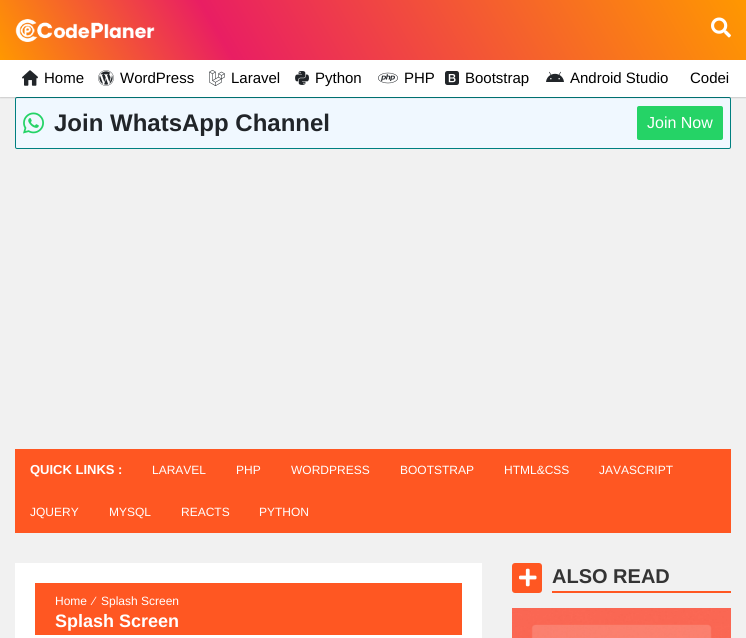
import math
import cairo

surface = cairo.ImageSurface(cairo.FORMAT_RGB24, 746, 638)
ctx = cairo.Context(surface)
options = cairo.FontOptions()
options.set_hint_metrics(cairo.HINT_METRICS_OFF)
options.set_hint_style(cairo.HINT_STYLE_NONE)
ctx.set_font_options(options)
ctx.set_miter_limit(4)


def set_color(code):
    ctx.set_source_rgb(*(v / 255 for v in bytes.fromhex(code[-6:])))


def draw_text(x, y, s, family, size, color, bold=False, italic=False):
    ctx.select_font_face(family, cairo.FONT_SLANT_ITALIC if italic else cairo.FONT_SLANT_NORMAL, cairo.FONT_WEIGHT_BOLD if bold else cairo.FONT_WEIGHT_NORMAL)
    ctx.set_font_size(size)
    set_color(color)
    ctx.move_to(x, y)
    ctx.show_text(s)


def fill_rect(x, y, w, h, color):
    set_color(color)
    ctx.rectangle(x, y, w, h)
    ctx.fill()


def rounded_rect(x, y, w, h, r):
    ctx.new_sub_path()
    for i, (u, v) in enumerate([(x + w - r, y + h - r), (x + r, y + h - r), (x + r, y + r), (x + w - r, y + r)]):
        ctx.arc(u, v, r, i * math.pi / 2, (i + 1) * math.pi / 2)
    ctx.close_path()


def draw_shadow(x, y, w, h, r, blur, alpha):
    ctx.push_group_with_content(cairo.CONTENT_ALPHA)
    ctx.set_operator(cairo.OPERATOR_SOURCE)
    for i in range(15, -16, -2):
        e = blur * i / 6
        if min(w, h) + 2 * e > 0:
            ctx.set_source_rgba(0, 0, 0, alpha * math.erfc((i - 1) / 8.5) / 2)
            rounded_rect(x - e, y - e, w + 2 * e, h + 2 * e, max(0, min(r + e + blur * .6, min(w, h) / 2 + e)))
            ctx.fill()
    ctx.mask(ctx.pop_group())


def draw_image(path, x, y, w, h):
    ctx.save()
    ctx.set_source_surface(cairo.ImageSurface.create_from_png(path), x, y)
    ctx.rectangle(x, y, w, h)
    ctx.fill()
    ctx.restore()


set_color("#f1f1f1")
ctx.paint()
gradient = cairo.LinearGradient(80, 199, 666, -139)
gradient.add_color_stop_rgba(0, 1, 0.596, 0, 1)
gradient.add_color_stop_rgba(0.3, 0.914, 0.118, 0.388, 1)
gradient.add_color_stop_rgba(1, 1, 0.596, 0, 1)
ctx.set_source(gradient)
ctx.rectangle(0, 0, 746, 60)
ctx.fill()
draw_image("assets/img1.png", 15, 19, 140, 23)
draw_image("assets/img2.png", 711, 17, 20, 21)
set_color("#f0f8ff")
rounded_rect(15.5, 97.5, 715, 51, 1.5)
ctx.fill_preserve()
set_color("#008080")
ctx.set_line_width(1)
ctx.stroke()
set_color("#010101")
draw_shadow(0, 61, 746, 37, 0, 0.5, 0.15)
fill_rect(0, 60, 746, 37, "#ffffff")
draw_image("assets/img3.png", 22, 70, 16, 16)
draw_text(44, 83, "Home", "Liberation Sans", 15, "#000000")
draw_image("assets/img4.png", 98, 70, 16, 16)
draw_text(120, 83, "WordPress", "Liberation Sans", 15, "#000000")
draw_image("assets/img5.png", 209, 70, 16, 16)
draw_text(231, 83, "Laravel", "Liberation Sans", 15, "#000000")
draw_image("assets/img6.png", 295, 71, 14, 14)
draw_text(315, 83, "Python", "Liberation Sans", 15, "#000000")
draw_image("assets/img7.png", 378, 72, 20, 12)
draw_text(404, 83, "PHP", "Liberation Sans", 15, "#000000")
draw_image("assets/img8.png", 445, 71, 14, 14)
draw_text(465, 83, "Bootstrap", "Liberation Sans", 15, "#000000")
draw_image("assets/img9.png", 546, 71, 18, 11)
draw_text(570, 83, "Android Studio", "Liberation Sans", 15, "#000000")
draw_text(690, 83, "Codei", "Liberation Sans", 15, "#000000")
draw_image("assets/img10.png", 23, 112, 21, 22)
draw_text(54, 131, "Join WhatsApp Channel", "Liberation Sans", 24, "#212529", bold=True)
set_color("#25d366")
rounded_rect(637, 106, 86, 34, 2)
ctx.fill()
draw_text(647, 128, "Join Now", "Liberation Sans", 16, "#ffffff")
fill_rect(15, 449, 716, 84, "#ff5722")
draw_text(30, 474, "QUICK LINKS :", "Liberation Sans", 13, "#ffffff", bold=True)
draw_text(152, 474, "LARAVEL", "Liberation Sans", 12, "#ffffff")
draw_text(236, 474, "PHP", "Liberation Sans", 12, "#ffffff")
draw_text(291, 474, "WORDPRESS", "Liberation Sans", 12, "#ffffff")
draw_text(400, 474, "BOOTSTRAP", "Liberation Sans", 12, "#ffffff")
draw_text(504, 474, "HTML&CSS", "Liberation Sans", 12, "#ffffff")
draw_text(599, 474, "JAVASCRIPT", "Liberation Sans", 12, "#ffffff")
draw_text(30, 516, "JQUERY", "Liberation Sans", 12, "#ffffff")
draw_text(109, 516, "MYSQL", "Liberation Sans", 12, "#ffffff")
draw_text(181, 516, "REACTS", "Liberation Sans", 12, "#ffffff")
draw_text(259, 516, "PYTHON", "Liberation Sans", 12, "#ffffff")
set_color("#ff5722")
rounded_rect(512, 563, 30, 30, 3)
ctx.fill()
draw_image("assets/img11.png", 519, 568, 18, 19)
draw_text(552, 583, "ALSO READ", "Liberation Sans", 20, "#343434", bold=True)
fill_rect(552, 591, 179, 2, "#ff5722")
draw_image("assets/img12.png", 512, 608, 219, 30)
fill_rect(15, 563, 467, 75, "#ffffff")
fill_rect(35, 583, 427, 52, "#ff5722")
draw_text(55, 605, "Home", "Liberation Sans", 12, "#ffffff")
draw_text(93, 605, "⁄", "Liberation Sans", 12, "#ffffff")
draw_text(101, 605, "Splash Screen", "Liberation Sans", 12, "#ffffff")
draw_text(55, 627, "Splash Screen", "Liberation Sans", 18, "#ffffff", bold=True)
surface.write_to_png("output.png")
